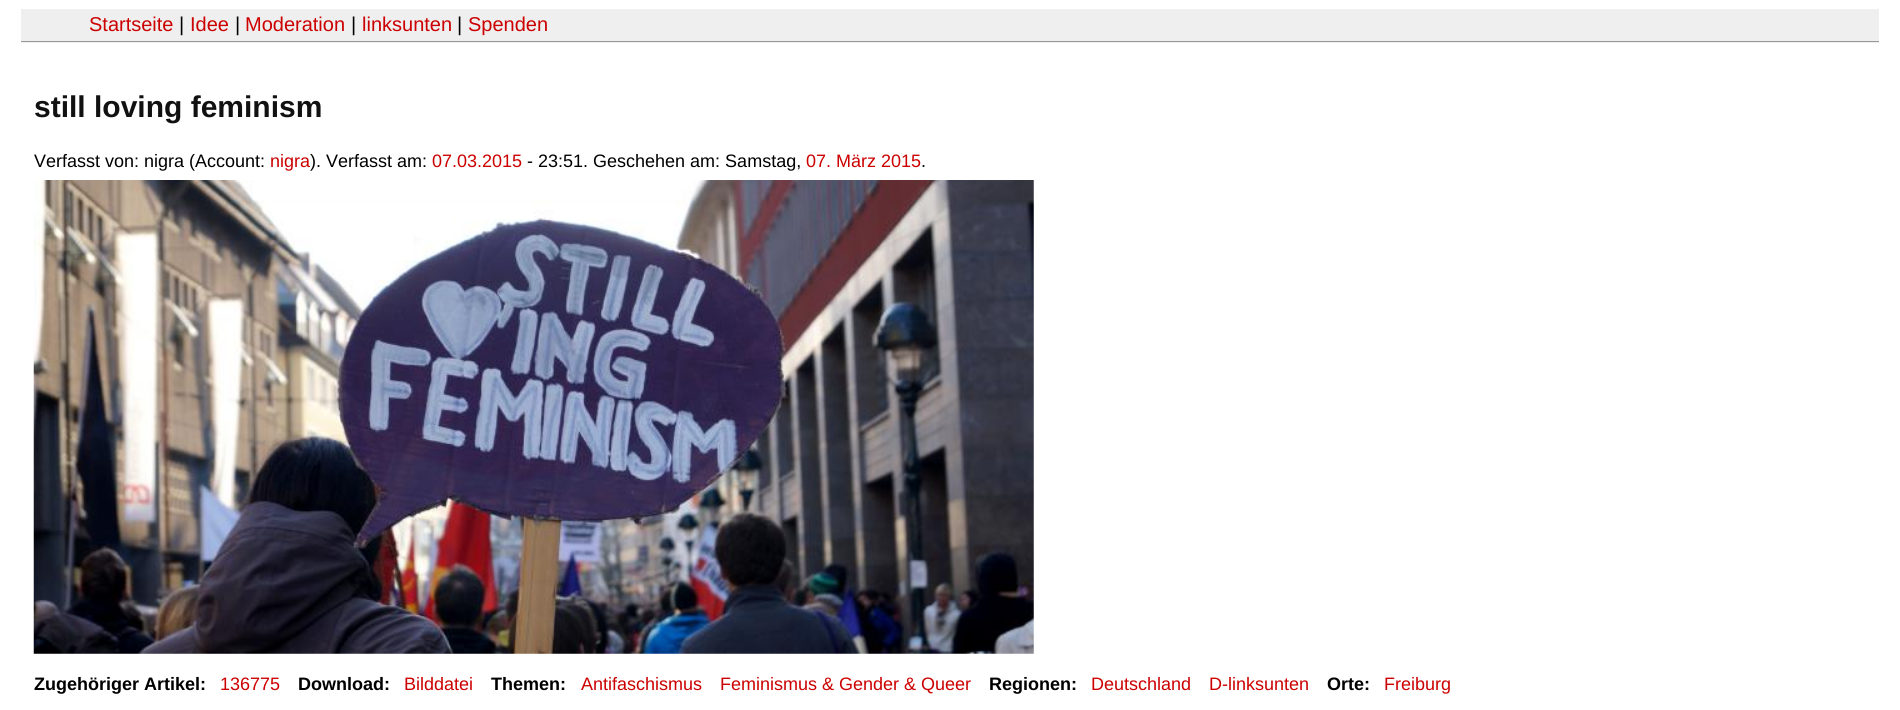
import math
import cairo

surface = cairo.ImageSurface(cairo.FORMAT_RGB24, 1900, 710)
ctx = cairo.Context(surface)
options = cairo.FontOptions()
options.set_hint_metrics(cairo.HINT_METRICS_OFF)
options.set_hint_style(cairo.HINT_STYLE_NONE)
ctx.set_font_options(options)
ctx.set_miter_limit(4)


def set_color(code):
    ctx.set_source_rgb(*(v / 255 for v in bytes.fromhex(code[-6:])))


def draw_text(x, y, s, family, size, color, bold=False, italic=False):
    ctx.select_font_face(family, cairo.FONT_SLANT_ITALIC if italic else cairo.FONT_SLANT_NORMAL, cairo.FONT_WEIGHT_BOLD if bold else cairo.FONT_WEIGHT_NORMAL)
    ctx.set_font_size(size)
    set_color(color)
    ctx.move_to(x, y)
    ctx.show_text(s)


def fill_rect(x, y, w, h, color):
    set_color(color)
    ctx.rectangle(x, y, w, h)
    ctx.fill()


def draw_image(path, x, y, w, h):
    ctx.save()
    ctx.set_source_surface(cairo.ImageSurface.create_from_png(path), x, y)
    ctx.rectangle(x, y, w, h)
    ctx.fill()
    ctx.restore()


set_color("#ffffff")
ctx.paint()
fill_rect(21, 9, 1858, 34, "#efefef")
fill_rect(21, 41, 1858, 1, "#999999")
draw_text(89, 31, "Startseite", "Liberation Sans", 20, "#cc0000")
draw_text(179, 31, "|", "Liberation Sans", 20, "#000000")
draw_text(190, 31, "Idee", "Liberation Sans", 20, "#cc0000")
draw_text(235, 31, "|", "Liberation Sans", 20, "#000000")
draw_text(245, 31, "Moderation", "Liberation Sans", 20, "#cc0000")
draw_text(351, 31, "|", "Liberation Sans", 20, "#000000")
draw_text(362, 31, "linksunten", "Liberation Sans", 20, "#cc0000")
draw_text(457, 31, "|", "Liberation Sans", 20, "#000000")
draw_text(468, 31, "Spenden", "Liberation Sans", 20, "#cc0000")
draw_text(34, 117, "still loving feminism", "Liberation Sans", 30, "#111111", bold=True)
draw_text(34, 167, "Verfasst von: nigra (Account:", "Liberation Sans", 18, "#000000")
draw_text(270, 167, "nigra", "Liberation Sans", 18, "#cc0000")
draw_text(310, 167, "). Verfasst am:", "Liberation Sans", 18, "#000000")
draw_text(432, 167, "07.03.2015", "Liberation Sans", 18, "#cc0000")
draw_text(527, 167, "- 23:51. Geschehen am: Samstag,", "Liberation Sans", 18, "#000000")
draw_text(806, 167, "07. März 2015", "Liberation Sans", 18, "#cc0000")
draw_text(921, 167, ".", "Liberation Sans", 18, "#000000")
draw_image("assets/img1.png", 33, 180, 1001, 474)
draw_text(34, 690, "Zugehöriger Artikel:", "Liberation Sans", 18, "#000000", bold=True)
draw_text(220, 690, "136775", "Liberation Sans", 18, "#cc0000")
draw_text(298, 690, "Download:", "Liberation Sans", 18, "#000000", bold=True)
draw_text(404, 690, "Bilddatei", "Liberation Sans", 18, "#cc0000")
draw_text(491, 690, "Themen:", "Liberation Sans", 18, "#000000", bold=True)
draw_text(581, 690, "Antifaschismus", "Liberation Sans", 18, "#cc0000")
draw_text(720, 690, "Feminismus & Gender & Queer", "Liberation Sans", 18, "#cc0000")
draw_text(989, 690, "Regionen:", "Liberation Sans", 18, "#000000", bold=True)
draw_text(1091, 690, "Deutschland", "Liberation Sans", 18, "#cc0000")
draw_text(1209, 690, "D-linksunten", "Liberation Sans", 18, "#cc0000")
draw_text(1327, 690, "Orte:", "Liberation Sans", 18, "#000000", bold=True)
draw_text(1384, 690, "Freiburg", "Liberation Sans", 18, "#cc0000")
surface.write_to_png("output.png")
